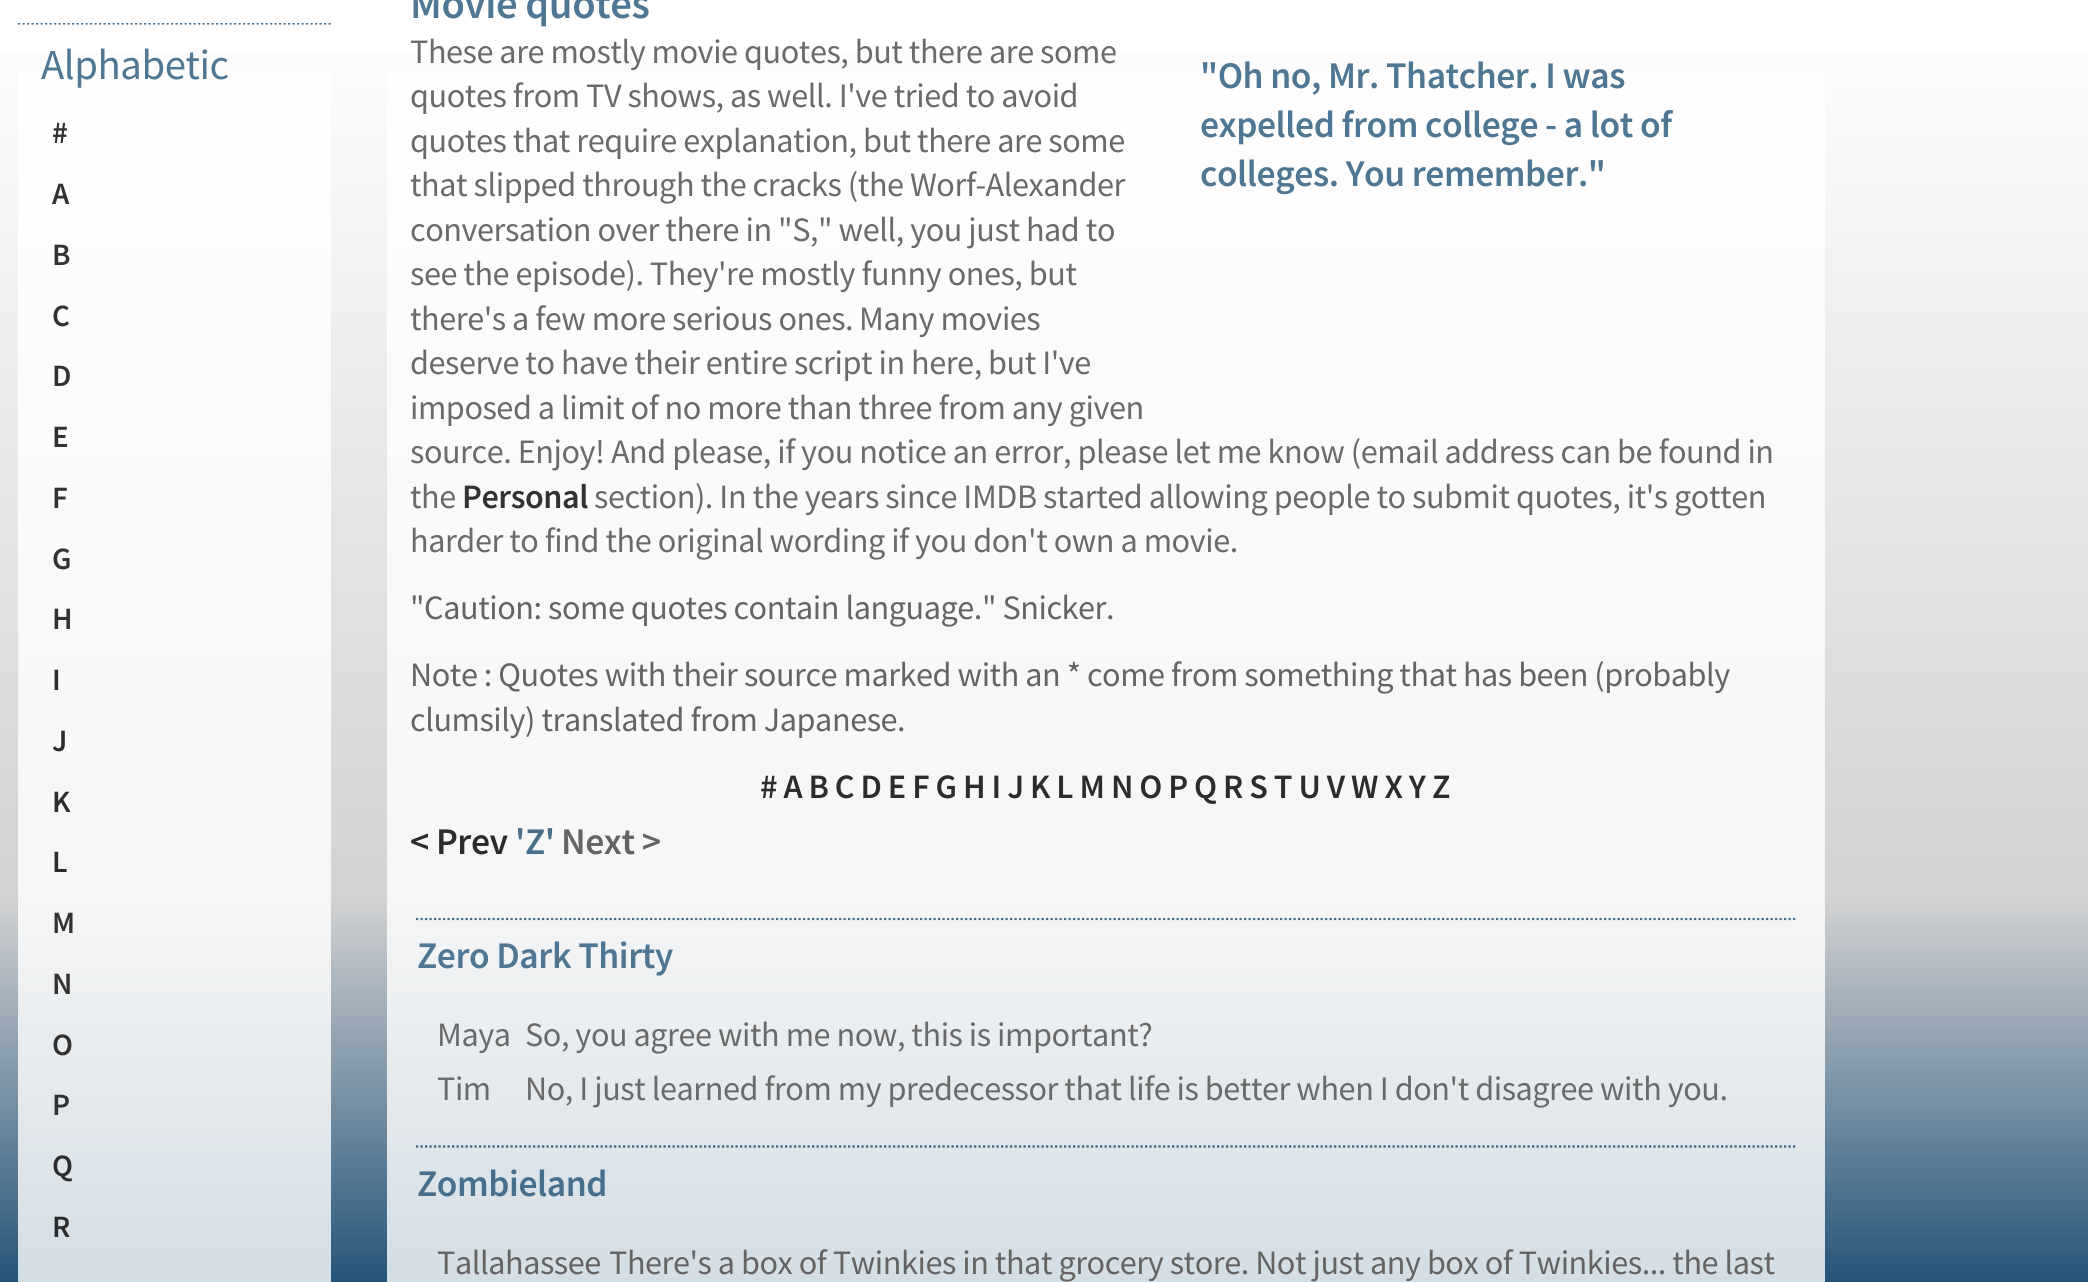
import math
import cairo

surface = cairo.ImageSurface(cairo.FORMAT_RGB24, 2088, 1282)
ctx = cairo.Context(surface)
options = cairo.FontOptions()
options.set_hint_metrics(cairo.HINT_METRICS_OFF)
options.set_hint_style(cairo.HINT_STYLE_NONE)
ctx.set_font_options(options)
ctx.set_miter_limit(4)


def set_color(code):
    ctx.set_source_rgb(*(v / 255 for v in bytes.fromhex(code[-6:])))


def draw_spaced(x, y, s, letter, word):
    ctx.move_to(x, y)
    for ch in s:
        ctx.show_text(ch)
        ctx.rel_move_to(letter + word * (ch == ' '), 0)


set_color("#ffffff")
ctx.paint()
gradient = cairo.LinearGradient(1044, 0, 1044, 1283)
gradient.add_color_stop_rgba(0, 1, 1, 1, 1)
gradient.add_color_stop_rgba(0.7, 0.824, 0.824, 0.824, 1)
gradient.add_color_stop_rgba(1, 0.141, 0.329, 0.475, 1)
ctx.set_source(gradient)
ctx.rectangle(0, 50, 2088, 1232)
ctx.fill()
gradient = cairo.LinearGradient(1044, 0, 1044, 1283)
gradient.add_color_stop_rgba(0, 1, 1, 1, 1)
gradient.add_color_stop_rgba(0.7, 0.965, 0.965, 0.965, 1)
gradient.add_color_stop_rgba(1, 0.827, 0.867, 0.894, 1)
ctx.set_source(gradient)
ctx.rectangle(387, 70, 1438, 1212)
ctx.fill()
ctx.rectangle(18, 70, 313, 1212)
ctx.fill()
ctx.save()
ctx.rectangle(18, 23, 313, 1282)
ctx.clip()
ctx.new_path()
ctx.move_to(18, 23.5)
ctx.line_to(331, 23.5)
set_color("#507694")
ctx.set_line_width(2.2)
ctx.set_dash([2.25, 2.25])
ctx.stroke()
ctx.restore()
ctx.select_font_face("Source Sans Pro")
ctx.set_font_size(42.75)
set_color("#4f7693")
draw_spaced(41, 79, "Alphabetic", -0.45, 0)
ctx.select_font_face("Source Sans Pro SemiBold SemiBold")
ctx.set_font_size(31)
set_color("#323232")
draw_spaced(52, 143, "#", -0.45, 0)
draw_spaced(52, 204, "A", -0.45, 0)
draw_spaced(52, 265, "B", -0.45, 0)
draw_spaced(52, 326, "C", -0.45, 0)
draw_spaced(52, 386, "D", -0.45, 0)
draw_spaced(52, 447, "E", -0.45, 0)
draw_spaced(52, 508, "F", -0.45, 0)
draw_spaced(52, 569, "G", -0.45, 0)
draw_spaced(52, 629, "H", -0.45, 0)
set_color("#2c2c2c")
draw_spaced(52, 690, "I", -0.45, 0)
draw_spaced(52, 751, "J", -0.45, 0)
draw_spaced(52, 812, "K", -0.45, 0)
draw_spaced(52, 872, "L", -0.45, 0)
set_color("#323232")
draw_spaced(52, 933, "M", -0.45, 0)
draw_spaced(52, 994, "N", -0.45, 0)
draw_spaced(52, 1055, "O", -0.45, 0)
draw_spaced(52, 1115, "P", -0.45, 0)
set_color("#2c2c2c")
draw_spaced(52, 1176, "Q", -0.45, 0)
draw_spaced(52, 1237, "R", -0.45, 0)
ctx.set_font_size(42.75)
set_color("#4f7693")
draw_spaced(410, 18, "Movie quotes", -0.45, 0)
ctx.select_font_face("Source Sans Pro")
ctx.set_font_size(34.2)
set_color("#6a6a6a")
draw_spaced(410, 63, "These are mostly movie quotes, but there are some", -0.45, 0)
draw_spaced(410, 107, "quotes from TV shows, as well. I've tried to avoid", -0.45, 0)
draw_spaced(410, 152, "quotes that require explanation, but there are some", -0.45, 0)
draw_spaced(410, 196, "that slipped through the cracks (the Worf-Alexander", -0.45, 0)
draw_spaced(410, 241, "conversation over there in \"S,\" well, you just had to", -0.45, 0)
draw_spaced(410, 285, "see the episode). They're mostly funny ones, but", -0.45, 0)
draw_spaced(410, 330, "there's a few more serious ones.", -0.45, 0)
draw_spaced(859, 330, "Many movies", -0.45, 0)
draw_spaced(410, 374, "deserve to have their entire script in here, but I've", -0.45, 0)
draw_spaced(410, 419, "imposed a limit of no more than three from any given", -0.45, 0)
draw_spaced(410, 463, "source. Enjoy! And please, if you notice an error, please let me know (email address can be found in", -0.45, 0)
draw_spaced(410, 508, "the", -0.45, 0)
ctx.select_font_face("Source Sans Pro SemiBold SemiBold")
set_color("#323232")
draw_spaced(462, 508, "Personal", -0.45, 0)
ctx.select_font_face("Source Sans Pro")
set_color("#6a6a6a")
draw_spaced(594, 508, "section). In the years since IMDB started allowing people to submit quotes, it's gotten", -0.45, 0)
draw_spaced(410, 552, "harder to find the original wording if you don't own a movie.", -0.45, 0)
ctx.select_font_face("Source Sans Pro SemiBold SemiBold")
ctx.set_font_size(37.6)
set_color("#4f7693")
draw_spaced(1200, 88, "\"Oh no, Mr. Thatcher. I was", -0.45, 0)
draw_spaced(1200, 137, "expelled from college - a lot of", -0.45, 0)
draw_spaced(1200, 186, "colleges. You remember.\"", -0.45, 0)
ctx.select_font_face("Source Sans Pro")
ctx.set_font_size(34.2)
set_color("#646464")
draw_spaced(410, 619, "\"Caution: some quotes contain language.\" Snicker.", -0.45, 0)
draw_spaced(410, 686, "Note : Quotes with their source marked with an * come from something that has been (probably", -0.45, 0)
draw_spaced(410, 731, "clumsily) translated from Japanese.", -0.45, 0)
ctx.select_font_face("Source Sans Pro SemiBold SemiBold")
set_color("#2c2c2c")
draw_spaced(760, 798, "# A B C D E F G H I J K L M N O P Q R S T U V W X Y Z", -0.45, 0)
ctx.set_font_size(37.6)
draw_spaced(410, 854, "< Prev", -0.45, 0)
set_color("#476e8b")
draw_spaced(515, 854, "'Z'", -0.45, 0)
set_color("#646464")
draw_spaced(561, 854, "Next >", -0.45, 0)
ctx.new_path()
ctx.move_to(416, 919)
ctx.line_to(1795.5, 919)
set_color("#456c8a")
ctx.set_line_width(2.2)
ctx.set_dash([2.25, 2.25])
ctx.stroke()
set_color("#4f7693")
draw_spaced(417, 968, "Zero Dark Thirty", -0.45, 0)
ctx.select_font_face("Source Sans Pro")
ctx.set_font_size(34.2)
set_color("#6a6a6a")
draw_spaced(437, 1046, "Maya", -0.45, 0)
draw_spaced(525, 1046, "So, you agree with me now, this is important?", -0.45, 0)
draw_spaced(437, 1100, "Tim", -0.45, 0)
draw_spaced(525, 1100, "No, I just learned from my predecessor that life is better when I don't disagree with you.", -0.45, 0)
ctx.new_path()
ctx.move_to(416, 1146.5)
ctx.line_to(1795.5, 1146.5)
set_color("#305d7f")
ctx.stroke()
ctx.select_font_face("Source Sans Pro SemiBold SemiBold")
ctx.set_font_size(37.6)
set_color("#476e8b")
draw_spaced(417, 1196, "Zombieland", -0.45, 0)
ctx.select_font_face("Source Sans Pro")
ctx.set_font_size(34.2)
set_color("#646464")
draw_spaced(437, 1274, "Tallahassee", -0.45, 0)
draw_spaced(609, 1274, "There's a box of Twinkies in that grocery store. Not just any box of Twinkies... the last", -0.45, 0)
surface.write_to_png("output.png")
